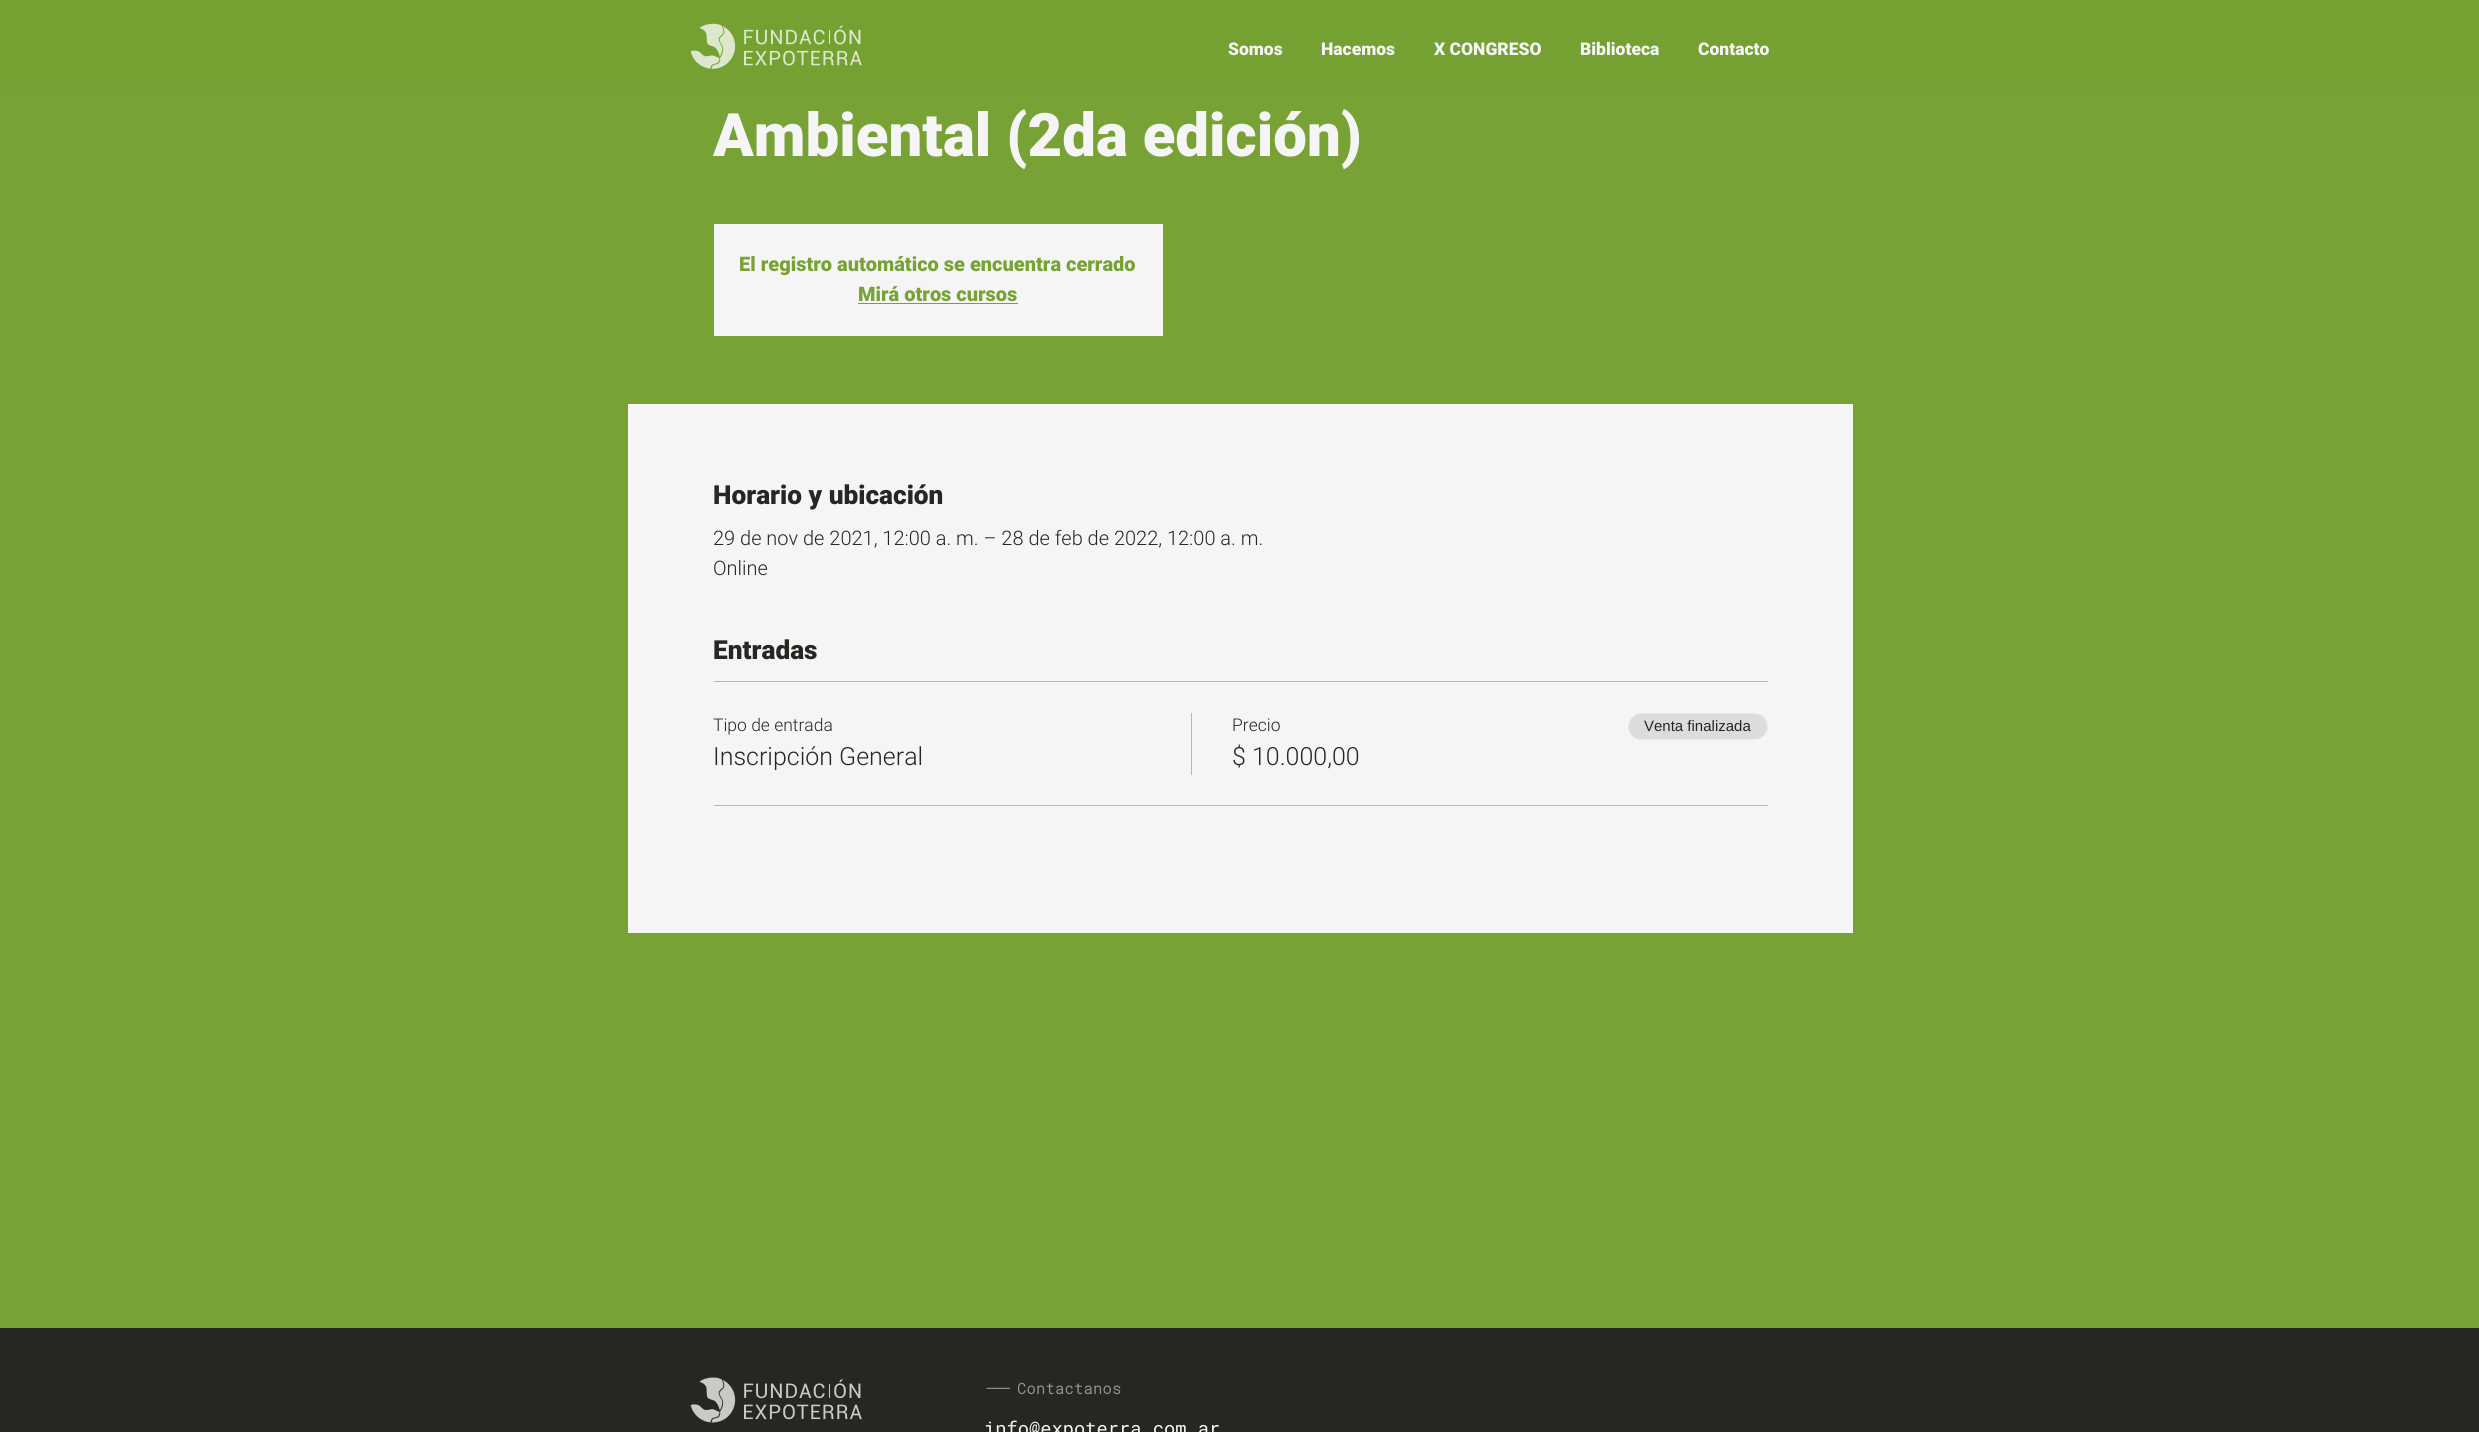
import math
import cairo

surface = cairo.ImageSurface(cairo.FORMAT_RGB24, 2479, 1432)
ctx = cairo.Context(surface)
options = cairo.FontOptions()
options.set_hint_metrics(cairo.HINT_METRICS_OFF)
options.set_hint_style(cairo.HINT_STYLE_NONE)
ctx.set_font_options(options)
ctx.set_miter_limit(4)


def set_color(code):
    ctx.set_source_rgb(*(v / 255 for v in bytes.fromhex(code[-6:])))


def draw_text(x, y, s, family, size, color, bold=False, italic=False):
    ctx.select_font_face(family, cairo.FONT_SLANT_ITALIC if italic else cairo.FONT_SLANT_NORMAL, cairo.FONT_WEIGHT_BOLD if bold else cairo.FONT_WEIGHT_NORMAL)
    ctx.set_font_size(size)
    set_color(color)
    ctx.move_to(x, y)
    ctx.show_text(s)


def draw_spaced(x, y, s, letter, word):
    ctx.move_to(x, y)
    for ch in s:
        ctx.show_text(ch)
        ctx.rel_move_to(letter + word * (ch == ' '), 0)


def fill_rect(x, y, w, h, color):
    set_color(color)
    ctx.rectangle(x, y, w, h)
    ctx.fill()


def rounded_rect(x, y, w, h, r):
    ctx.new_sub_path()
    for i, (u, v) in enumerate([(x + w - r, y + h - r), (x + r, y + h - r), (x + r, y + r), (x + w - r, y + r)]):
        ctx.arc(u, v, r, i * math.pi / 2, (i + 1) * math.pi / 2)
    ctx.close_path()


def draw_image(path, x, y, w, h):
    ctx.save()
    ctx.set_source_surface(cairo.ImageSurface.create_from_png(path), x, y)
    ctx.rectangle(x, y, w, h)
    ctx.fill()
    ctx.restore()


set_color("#78a236")
ctx.paint()
fill_rect(0, 0, 2479, 89, "#75a032")
draw_image("assets/img1.png", 690, 23, 172, 46)
draw_text(1228, 55, "Somos", "Roboto Black", 17.5, "#f5f5f5")
draw_text(1321, 55, "Hacemos", "Roboto Black", 17.5, "#f5f5f5")
draw_text(1434, 55, "X CONGRESO", "Roboto Black", 17.5, "#f5f5f5")
draw_text(1580, 55, "Biblioteca", "Roboto Black", 17.5, "#f5f5f5")
draw_text(1698, 55, "Contacto", "Roboto Black", 17.5, "#f5f5f5")
draw_text(713, 156, "Ambiental (2da edición)", "Roboto Black", 60, "#f5f5f5")
fill_rect(714, 224, 449, 112, "#f5f5f5")
draw_text(739, 271, "El registro automático se encuentra cerrado", "Roboto Black", 20, "#78a236")
draw_text(858, 301, "Mirá otros cursos", "Roboto Black", 20, "#78a236")
fill_rect(858, 303, 160, 1, "#78a236")
fill_rect(628, 404, 1225, 529, "#f5f5f5")
draw_text(713, 504, "Horario y ubicación", "Roboto Black", 26.25, "#262622")
draw_text(713, 545, "29 de nov de 2021, 12:00 a. m. – 28 de feb de 2022, 12:00 a. m.", "Roboto Light", 20, "#262622")
draw_text(713, 575, "Online", "Roboto Light", 20, "#262622")
draw_text(713, 659, "Entradas", "Roboto Black", 26.25, "#262622")
fill_rect(714, 681, 1054, 1, "#b7b7b6")
fill_rect(714, 805, 1054, 1, "#b7b7b6")
draw_text(713, 731, "Tipo de entrada", "Roboto Light", 17.5, "#262622")
draw_text(713, 765, "Inscripción General", "Roboto Light", 25, "#262622")
fill_rect(1191, 713, 1, 62, "#b7b7b6")
draw_text(1232, 731, "Precio", "Roboto Light", 17.5, "#262622")
draw_text(1232, 765, "$ 10.000,00", "Roboto Light", 25, "#262622")
set_color("#dcdcdc")
rounded_rect(1628, 713, 140, 27, 13.5)
ctx.fill()
rounded_rect(1628.5, 713.5, 139, 26, 13)
ctx.set_source_rgba(1, 1, 1, 0.4)
ctx.set_line_width(1)
ctx.stroke()
draw_text(1644, 731, "Venta finalizada", "Liberation Sans", 15, "#262622")
fill_rect(0, 1328, 2479, 104, "#262622")
draw_image("assets/img2.png", 690, 1377, 172, 46)
ctx.select_font_face("Roboto Mono", cairo.FONT_SLANT_NORMAL, cairo.FONT_WEIGHT_BOLD)
set_color("#929290")
draw_spaced(986, 1394, "———", -1.5, 0)
draw_spaced(1017, 1394, "Contactanos", 0.5, 0)
draw_text(984, 1435, "info@expoterra.com.ar", "Roboto Mono", 18.75, "#f5f5f5")
surface.write_to_png("output.png")
